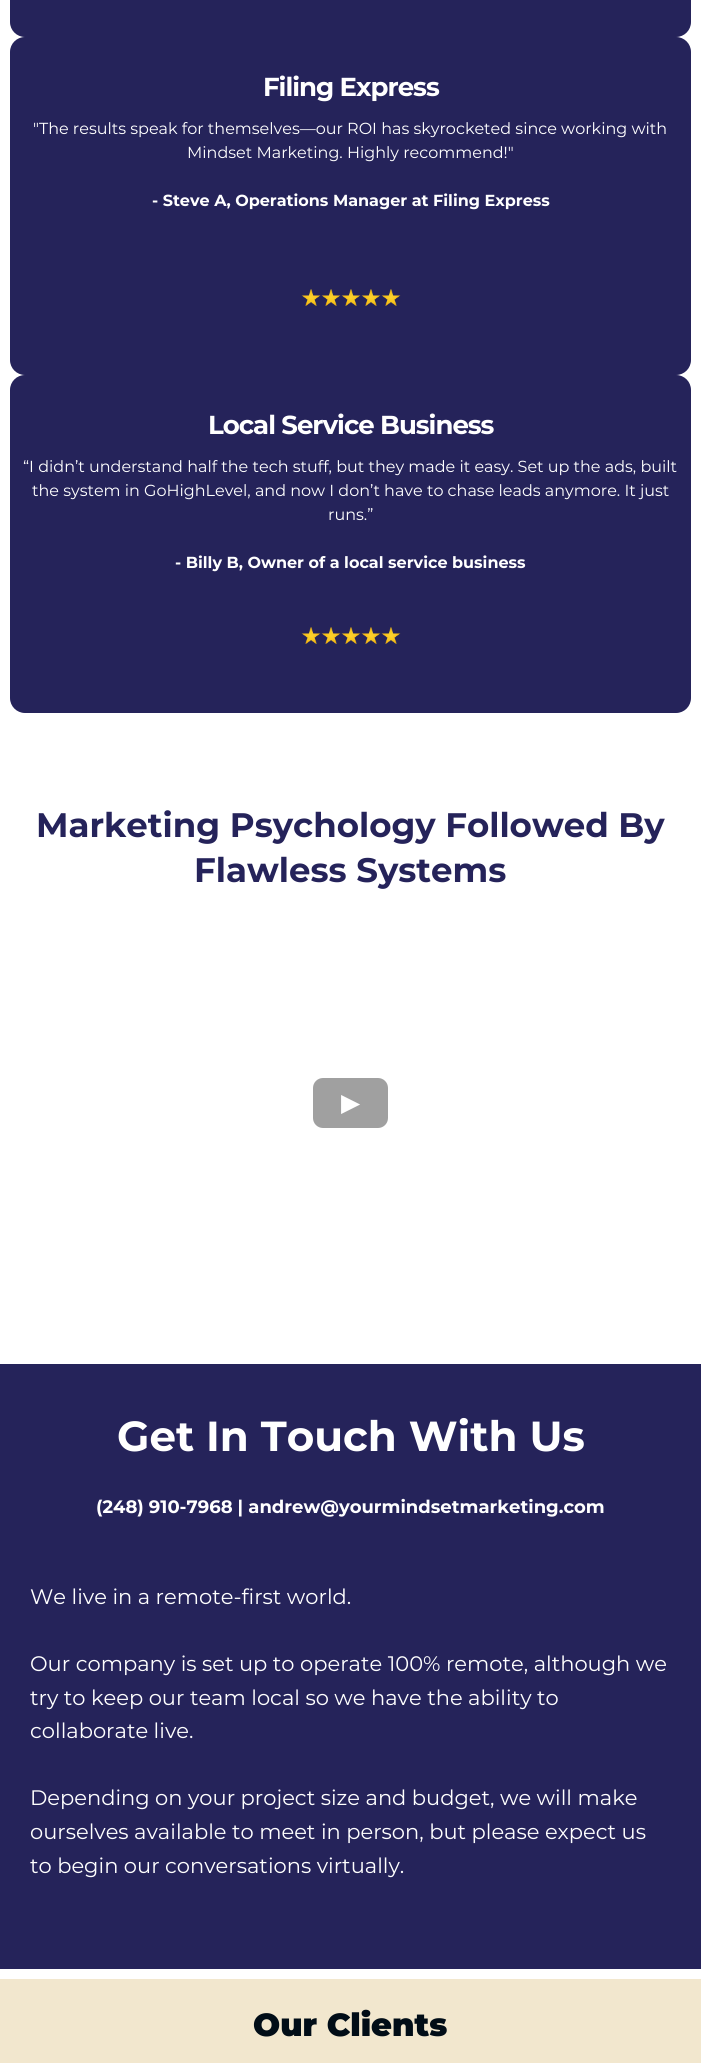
import math
import cairo

surface = cairo.ImageSurface(cairo.FORMAT_RGB24, 701, 2063)
ctx = cairo.Context(surface)
options = cairo.FontOptions()
options.set_hint_metrics(cairo.HINT_METRICS_OFF)
options.set_hint_style(cairo.HINT_STYLE_NONE)
ctx.set_font_options(options)
ctx.set_miter_limit(4)


def set_color(code):
    ctx.set_source_rgb(*(v / 255 for v in bytes.fromhex(code[-6:])))


def draw_text(x, y, s, family, size, color, bold=False, italic=False):
    ctx.select_font_face(family, cairo.FONT_SLANT_ITALIC if italic else cairo.FONT_SLANT_NORMAL, cairo.FONT_WEIGHT_BOLD if bold else cairo.FONT_WEIGHT_NORMAL)
    ctx.set_font_size(size)
    set_color(color)
    ctx.move_to(x, y)
    ctx.show_text(s)


def draw_spaced(x, y, s, letter, word):
    ctx.move_to(x, y)
    for ch in s:
        ctx.show_text(ch)
        ctx.rel_move_to(letter + word * (ch == ' '), 0)


def fill_rect(x, y, w, h, color):
    set_color(color)
    ctx.rectangle(x, y, w, h)
    ctx.fill()


def rounded_rect(x, y, w, h, r):
    ctx.new_sub_path()
    for i, (u, v) in enumerate([(x + w - r, y + h - r), (x + r, y + h - r), (x + r, y + r), (x + w - r, y + r)]):
        ctx.arc(u, v, r, i * math.pi / 2, (i + 1) * math.pi / 2)
    ctx.close_path()


def draw_image(path, x, y, w, h):
    ctx.save()
    ctx.set_source_surface(cairo.ImageSurface.create_from_png(path), x, y)
    ctx.rectangle(x, y, w, h)
    ctx.fill()
    ctx.restore()


set_color("#ffffff")
ctx.paint()
set_color("#25235a")
rounded_rect(10, -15, 681, 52, 15)
ctx.fill()
rounded_rect(10, 37, 681, 338, 15)
ctx.fill()
ctx.select_font_face("Montserrat", cairo.FONT_SLANT_NORMAL, cairo.FONT_WEIGHT_BOLD)
ctx.set_font_size(26)
set_color("#ffffff")
draw_spaced(263, 96, "Filing Express", -1, 0)
draw_text(33, 134, "\"The results speak for themselves—our ROI has skyrocketed since working with", "Montserrat", 16, "#ffffff")
draw_text(187, 158, "Mindset Marketing. Highly recommend!\"", "Montserrat", 16, "#ffffff")
draw_text(152, 206, "- Steve A, Operations Manager at Filing Express", "Montserrat", 16, "#ffffff", bold=True)
draw_image("assets/img1.png", 301, 289, 100, 17)
set_color("#25235a")
rounded_rect(10, 375, 681, 338, 15)
ctx.fill()
ctx.set_font_size(26)
set_color("#ffffff")
draw_spaced(208, 434, "Local Service Business", -1, 0)
draw_text(23, 472, "“I didn’t understand half the tech stuff, but they made it easy. Set up the ads, built", "Montserrat", 16, "#ffffff")
draw_text(32, 496, "the system in GoHighLevel, and now I don’t have to chase leads anymore. It just", "Montserrat", 16, "#ffffff")
draw_text(328, 520, "runs.”", "Montserrat", 16, "#ffffff")
draw_text(175, 568, "- Billy B, Owner of a local service business", "Montserrat", 16, "#ffffff", bold=True)
draw_image("assets/img1.png", 301, 627, 100, 17)
draw_text(36, 837, "Marketing Psychology Followed By", "Montserrat", 34, "#25235a", bold=True)
draw_text(194, 882, "Flawless Systems", "Montserrat", 34, "#25235a", bold=True)
set_color("#a0a0a0")
rounded_rect(313, 1078, 75, 50, 10)
ctx.fill()
draw_text(341, 1111, "▶", "DejaVu Sans", 25, "#ffffff")
fill_rect(0, 1364, 701, 605, "#25235a")
draw_text(117, 1451, "Get In Touch With Us", "Montserrat", 42, "#ffffff", bold=True)
draw_text(96, 1513, "(248) 910-7968 | andrew@yourmindsetmarketing.com", "Montserrat", 18, "#ffffff", bold=True)
draw_text(30, 1604, "We live in a remote-first world.", "Montserrat", 21, "#ffffff")
draw_text(30, 1671, "Our company is set up to operate 100% remote, although we", "Montserrat", 21, "#ffffff")
draw_text(30, 1705, "try to keep our team local so we have the ability to", "Montserrat", 21, "#ffffff")
draw_text(30, 1738, "collaborate live.", "Montserrat", 21, "#ffffff")
draw_text(30, 1805, "Depending on your project size and budget, we will make", "Montserrat", 21, "#ffffff")
draw_text(30, 1839, "ourselves available to meet in person, but please expect us", "Montserrat", 21, "#ffffff")
draw_text(30, 1873, "to begin our conversations virtually.", "Montserrat", 21, "#ffffff")
fill_rect(0, 1979, 701, 84, "#f2e7ce")
draw_text(253, 2036, "Our Clients", "Montserrat Black", 32, "#010d17")
surface.write_to_png("output.png")
